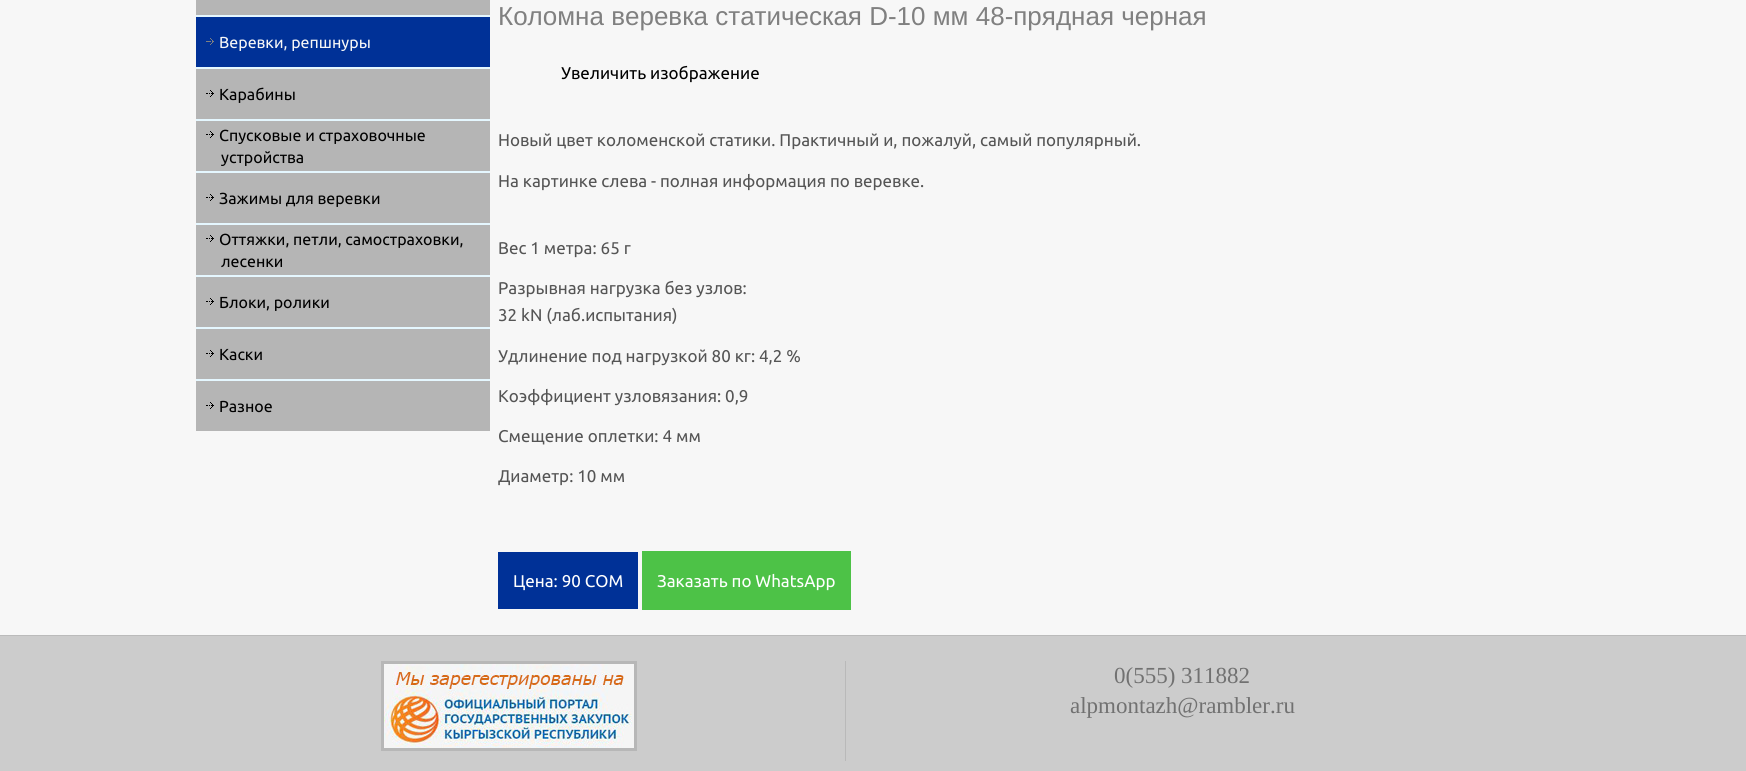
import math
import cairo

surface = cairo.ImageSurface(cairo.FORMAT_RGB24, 1746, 771)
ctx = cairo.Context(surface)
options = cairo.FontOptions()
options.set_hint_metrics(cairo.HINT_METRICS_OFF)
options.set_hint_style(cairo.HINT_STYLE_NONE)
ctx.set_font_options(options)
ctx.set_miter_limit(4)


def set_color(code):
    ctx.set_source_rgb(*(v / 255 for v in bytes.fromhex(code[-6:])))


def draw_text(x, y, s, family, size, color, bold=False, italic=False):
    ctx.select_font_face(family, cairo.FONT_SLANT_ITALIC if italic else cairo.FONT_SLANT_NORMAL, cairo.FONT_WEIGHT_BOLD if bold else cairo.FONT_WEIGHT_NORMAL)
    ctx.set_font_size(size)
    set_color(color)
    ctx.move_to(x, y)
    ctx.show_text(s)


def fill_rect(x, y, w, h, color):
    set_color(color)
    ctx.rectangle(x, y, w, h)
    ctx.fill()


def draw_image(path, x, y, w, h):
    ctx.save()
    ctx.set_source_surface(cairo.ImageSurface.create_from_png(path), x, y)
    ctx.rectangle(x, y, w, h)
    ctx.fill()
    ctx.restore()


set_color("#f7f7f7")
ctx.paint()
fill_rect(196, 15, 294, 366, "#e5f7ff")
fill_rect(196, 0, 294, 15, "#b5b5b5")
fill_rect(196, 17, 294, 50, "#003197")
draw_image("assets/img1.png", 206, 38, 8, 7)
draw_text(219, 48, "Веревки, репшнуры", "Ubuntu", 16, "#f7f7f7")
fill_rect(196, 69, 294, 50, "#b5b5b5")
draw_image("assets/img2.png", 206, 90, 8, 7)
draw_text(219, 100, "Карабины", "Ubuntu", 16, "#000000")
fill_rect(196, 121, 294, 50, "#b5b5b5")
draw_image("assets/img2.png", 206, 131, 8, 7)
draw_text(219, 141, "Спусковые и страховочные", "Ubuntu", 16, "#000000")
draw_text(221, 163, "устройства", "Ubuntu", 16, "#000000")
fill_rect(196, 173, 294, 50, "#b5b5b5")
draw_image("assets/img2.png", 206, 194, 8, 7)
draw_text(219, 204, "Зажимы для веревки", "Ubuntu", 16, "#000000")
fill_rect(196, 225, 294, 50, "#b5b5b5")
draw_image("assets/img2.png", 206, 235, 8, 7)
draw_text(219, 245, "Оттяжки, петли, самостраховки,", "Ubuntu", 16, "#000000")
draw_text(221, 267, "лесенки", "Ubuntu", 16, "#000000")
fill_rect(196, 277, 294, 50, "#b5b5b5")
draw_image("assets/img2.png", 206, 298, 8, 7)
draw_text(219, 308, "Блоки, ролики", "Ubuntu", 16, "#000000")
fill_rect(196, 329, 294, 50, "#b5b5b5")
draw_image("assets/img2.png", 206, 350, 8, 7)
draw_text(219, 360, "Каски", "Ubuntu", 16, "#000000")
fill_rect(196, 381, 294, 50, "#b5b5b5")
draw_image("assets/img2.png", 206, 402, 8, 7)
draw_text(219, 412, "Разное", "Ubuntu", 16, "#000000")
draw_text(498, 25, "Коломна веревка статическая D-10 мм 48-прядная черная", "Liberation Sans", 26, "#808080")
draw_text(561, 79, "Увеличить изображение", "Ubuntu", 17, "#000000")
draw_text(498, 146, "Новый цвет коломенской статики. Практичный и, пожалуй, самый популярный.", "Ubuntu", 17, "#555555")
draw_text(498, 187, "На картинке слева - полная информация по веревке.", "Ubuntu", 17, "#555555")
draw_text(498, 254, "Вес 1 метра: 65 г", "Ubuntu", 17, "#555555")
draw_text(498, 294, "Разрывная нагрузка без узлов:", "Ubuntu", 17, "#555555")
draw_text(498, 321, "32 kN (лаб.испытания)", "Ubuntu", 17, "#555555")
draw_text(498, 362, "Удлинение под нагрузкой 80 кг: 4,2 %", "Ubuntu", 17, "#555555")
draw_text(498, 402, "Коэффициент узловязания: 0,9", "Ubuntu", 17, "#555555")
draw_text(498, 442, "Смещение оплетки: 4 мм", "Ubuntu", 17, "#555555")
draw_text(498, 482, "Диаметр: 10 мм", "Ubuntu", 17, "#555555")
fill_rect(498, 552, 140, 57, "#003197")
draw_text(513, 587, "Цена: 90 COM", "Ubuntu", 17, "#ffffff")
fill_rect(642, 551, 209, 59, "#4dc247")
draw_text(657, 587, "Заказать по WhatsApp", "Ubuntu", 17, "#ffffff")
fill_rect(0, 636, 1746, 135, "#cccccc")
fill_rect(0, 635, 1746, 1, "#bbbbbb")
fill_rect(845, 661, 1, 100, "#b9b9b9")
ctx.rectangle(382.5, 662.5, 253, 87)
set_color("#b7b7b7")
ctx.set_line_width(3)
ctx.stroke()
draw_image("assets/img3.png", 384, 664, 250, 84)
draw_text(1114, 683, "0(555) 311882", "Liberation Serif", 23, "#717171")
draw_text(1070, 713, "alpmontazh@rambler.ru", "Liberation Serif", 23, "#717171")
surface.write_to_png("output.png")
